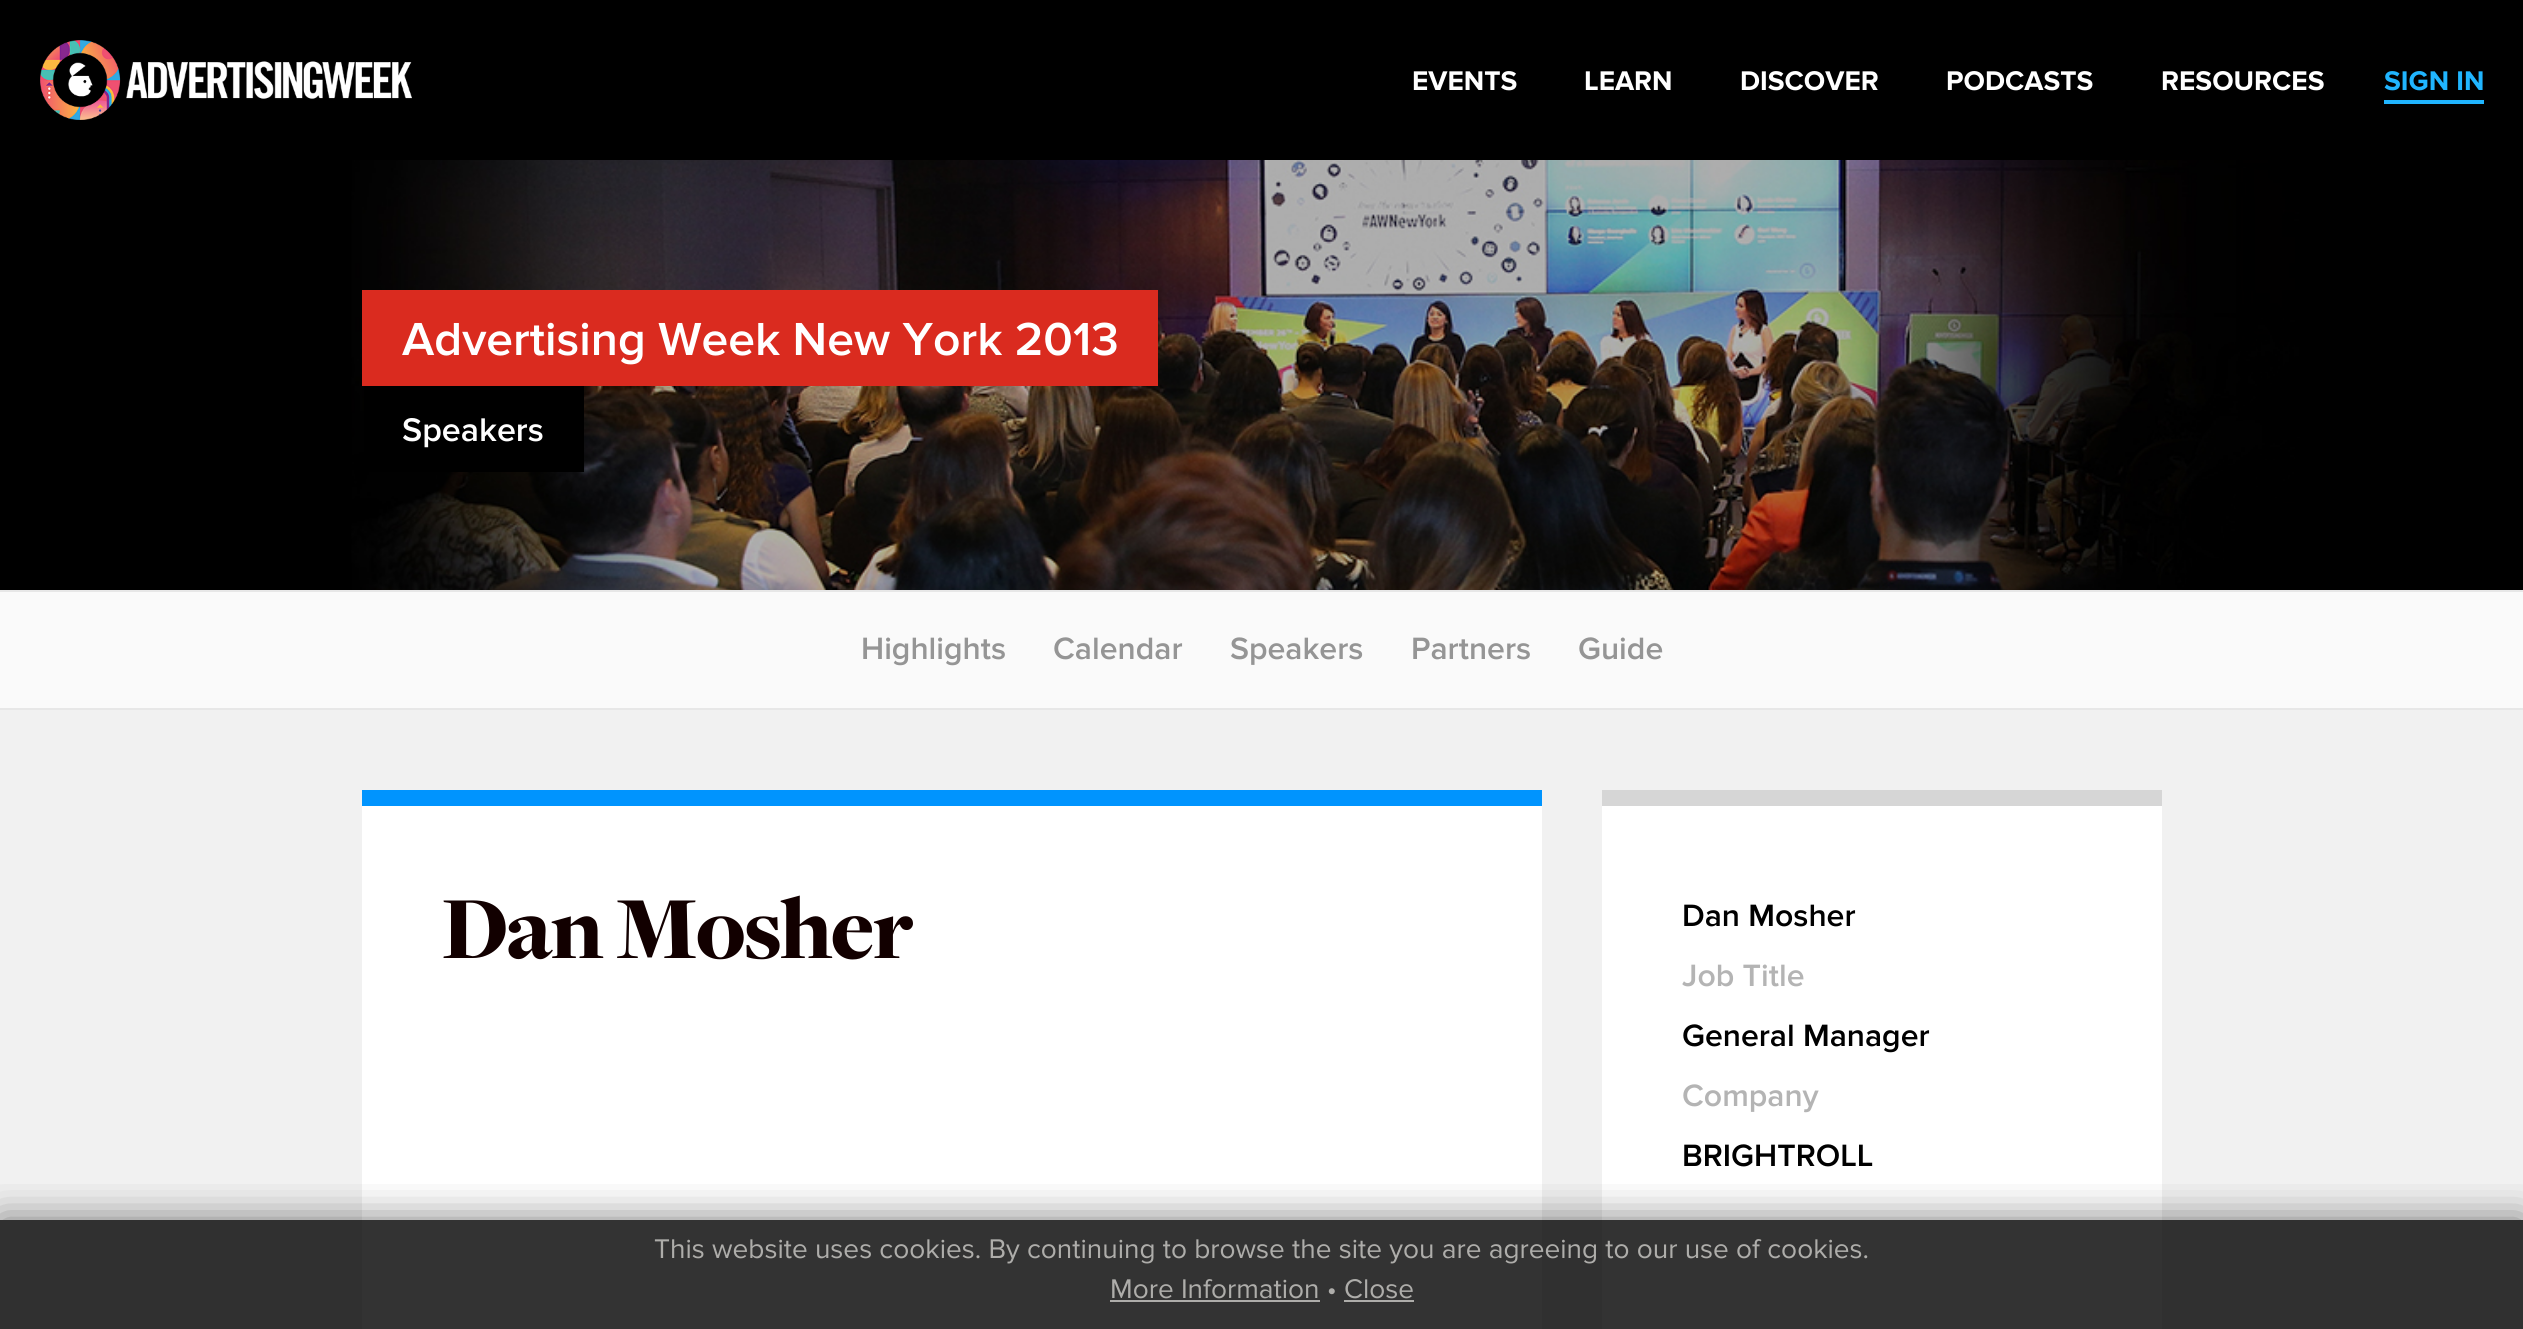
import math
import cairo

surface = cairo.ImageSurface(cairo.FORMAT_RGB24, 2523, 1329)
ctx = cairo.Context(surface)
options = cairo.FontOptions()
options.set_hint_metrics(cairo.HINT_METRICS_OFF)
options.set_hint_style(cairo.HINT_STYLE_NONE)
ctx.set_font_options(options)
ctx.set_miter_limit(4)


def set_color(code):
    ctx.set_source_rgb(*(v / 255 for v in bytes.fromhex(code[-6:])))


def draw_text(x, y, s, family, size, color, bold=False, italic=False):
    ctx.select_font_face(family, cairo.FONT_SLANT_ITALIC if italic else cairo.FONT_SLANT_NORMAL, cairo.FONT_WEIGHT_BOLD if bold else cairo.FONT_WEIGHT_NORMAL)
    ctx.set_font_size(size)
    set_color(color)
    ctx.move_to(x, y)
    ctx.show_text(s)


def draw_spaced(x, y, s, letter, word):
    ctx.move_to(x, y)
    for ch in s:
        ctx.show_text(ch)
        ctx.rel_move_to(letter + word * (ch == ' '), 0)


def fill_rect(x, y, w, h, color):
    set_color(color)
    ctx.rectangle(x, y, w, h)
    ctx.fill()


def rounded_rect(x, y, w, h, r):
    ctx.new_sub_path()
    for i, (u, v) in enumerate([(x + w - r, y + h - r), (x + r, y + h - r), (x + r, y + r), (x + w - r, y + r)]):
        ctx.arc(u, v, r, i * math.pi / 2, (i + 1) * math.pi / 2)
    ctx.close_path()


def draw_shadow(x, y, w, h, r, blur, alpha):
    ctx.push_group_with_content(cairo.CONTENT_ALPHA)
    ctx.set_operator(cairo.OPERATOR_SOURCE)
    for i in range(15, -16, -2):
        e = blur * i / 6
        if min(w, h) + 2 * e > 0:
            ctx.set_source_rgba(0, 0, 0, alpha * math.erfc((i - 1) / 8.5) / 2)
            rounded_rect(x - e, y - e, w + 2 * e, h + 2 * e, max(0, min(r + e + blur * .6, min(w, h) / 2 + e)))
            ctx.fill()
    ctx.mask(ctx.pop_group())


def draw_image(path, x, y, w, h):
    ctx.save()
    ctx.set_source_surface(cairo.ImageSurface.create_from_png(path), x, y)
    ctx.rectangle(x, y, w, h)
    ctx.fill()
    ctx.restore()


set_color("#f1f1f1")
ctx.paint()
fill_rect(0, 1220, 2523, 109, "#303030")
fill_rect(0, 0, 2523, 160, "#000000")
draw_image("assets/img1.png", 40, 40, 372, 80)
draw_text(1412, 90, "EVENTS", "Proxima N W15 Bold", 28, "#ffffff", bold=True)
draw_text(1584, 90, "LEARN", "Proxima N W15 Bold", 28, "#ffffff", bold=True)
draw_text(1740, 90, "DISCOVER", "Proxima N W15 Bold", 28, "#ffffff", bold=True)
draw_text(1946, 90, "PODCASTS", "Proxima N W15 Bold", 28, "#ffffff", bold=True)
draw_text(2161, 90, "RESOURCES", "Proxima N W15 Bold", 28, "#ffffff", bold=True)
draw_text(2384, 90, "SIGN IN", "Proxima N W15 Bold", 28, "#20b5ff", bold=True)
fill_rect(2384, 100, 100, 4, "#20b5ff")
draw_image("assets/img2.png", 0, 160, 2523, 430)
fill_rect(362, 290, 796, 96, "#da2b1f")
draw_text(402, 355, "Advertising Week New York 2013", "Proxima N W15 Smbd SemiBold", 48, "#ffffff")
fill_rect(364, 386, 220, 86, "#000000")
draw_text(402, 441, "Speakers", "Proxima N W15 Smbd SemiBold", 34, "#ffffff")
fill_rect(0, 592, 2523, 116, "#fafafa")
fill_rect(0, 590, 2523, 2, "#e7e7e7")
fill_rect(0, 708, 2523, 2, "#e7e7e7")
draw_text(861, 659, "Highlights", "Proxima N W15 Smbd SemiBold", 32, "#959595")
draw_text(1053, 659, "Calendar", "Proxima N W15 Smbd SemiBold", 32, "#959595")
draw_text(1230, 659, "Speakers", "Proxima N W15 Smbd SemiBold", 32, "#959595")
draw_text(1411, 659, "Partners", "Proxima N W15 Smbd SemiBold", 32, "#959595")
draw_text(1578, 659, "Guide", "Proxima N W15 Smbd SemiBold", 32, "#959595")
fill_rect(362, 806, 1180, 414, "#ffffff")
fill_rect(362, 1220, 1180, 109, "#333333")
fill_rect(362, 790, 1180, 16, "#0094fe")
ctx.select_font_face("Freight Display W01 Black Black")
ctx.set_font_size(92)
set_color("#120000")
draw_spaced(442, 958, "Dan Mosher", -2, 0)
fill_rect(1602, 806, 560, 414, "#ffffff")
fill_rect(1602, 1220, 560, 109, "#333333")
fill_rect(1602, 790, 560, 16, "#d6d6d6")
draw_text(1682, 926, "Dan Mosher", "Proxima N W15 Smbd SemiBold", 32, "#000000")
draw_text(1682, 986, "Job Title", "Proxima N W15 Smbd SemiBold", 32, "#b4b4b4")
draw_text(1682, 1046, "General Manager", "Proxima N W15 Smbd SemiBold", 32, "#000000")
draw_text(1682, 1106, "Company", "Proxima N W15 Smbd SemiBold", 32, "#b4b4b4")
draw_text(1682, 1166, "BRIGHTROLL", "Proxima N W15 Smbd SemiBold", 32, "#000000")
ctx.save()
ctx.rectangle(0, 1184, 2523, 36)
ctx.clip()
set_color("#000000")
draw_shadow(0, 1220, 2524, 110, 0, 20, 0.53)
ctx.restore()
draw_text(654, 1258, "This website uses cookies. By continuing to browse the site you are agreeing to our use of cookies.", "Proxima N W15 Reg", 28, "#aeadaa")
draw_text(1110, 1298, "More Information • Close", "Proxima N W15 Reg", 28, "#aeadaa")
fill_rect(1110, 1300, 210, 2, "#aeadaa")
fill_rect(1344, 1300, 70, 2, "#aeadaa")
surface.write_to_png("output.png")
